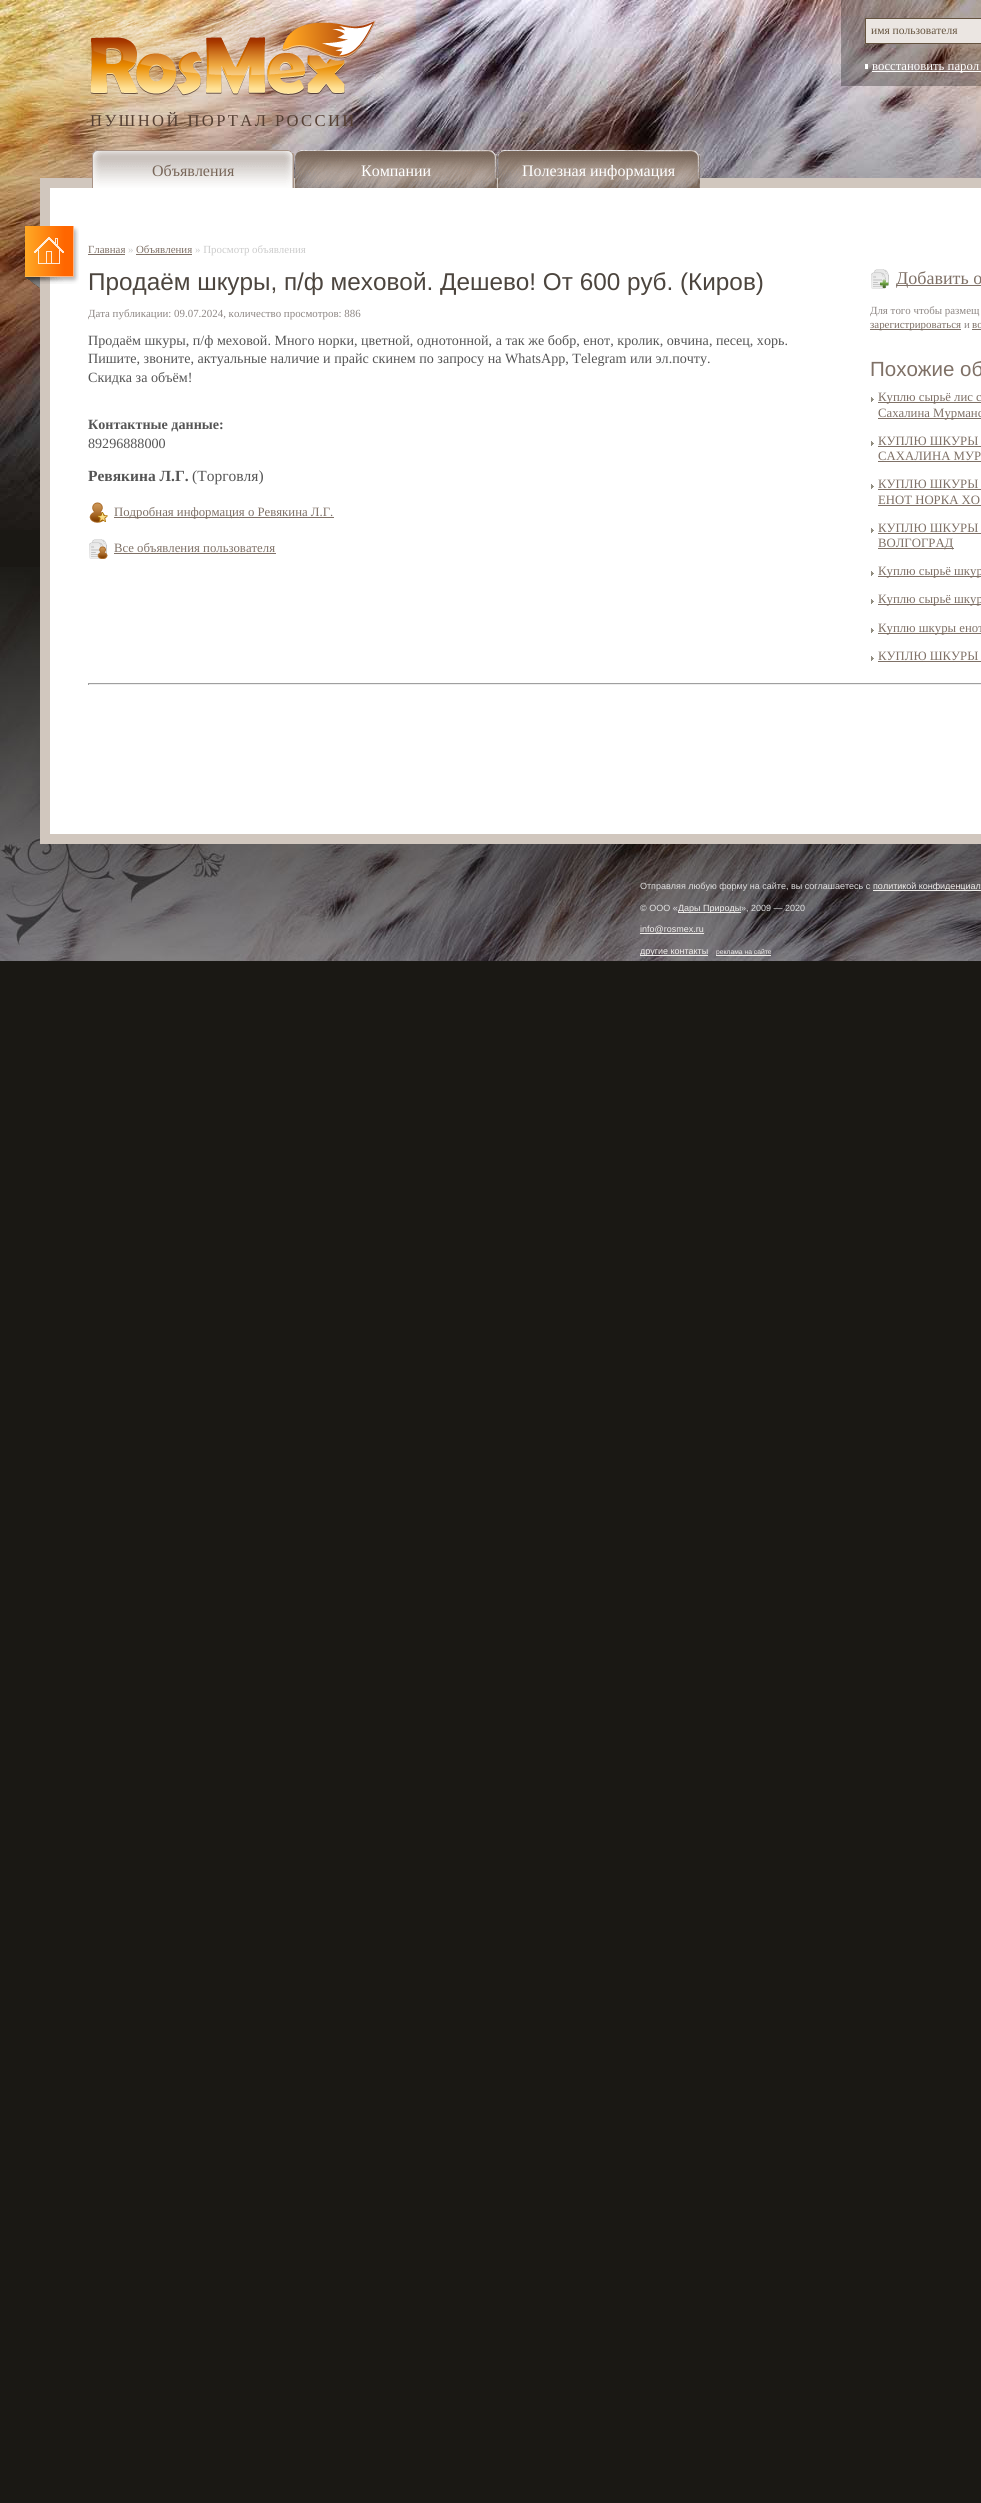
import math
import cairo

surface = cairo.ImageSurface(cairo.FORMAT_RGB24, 981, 2503)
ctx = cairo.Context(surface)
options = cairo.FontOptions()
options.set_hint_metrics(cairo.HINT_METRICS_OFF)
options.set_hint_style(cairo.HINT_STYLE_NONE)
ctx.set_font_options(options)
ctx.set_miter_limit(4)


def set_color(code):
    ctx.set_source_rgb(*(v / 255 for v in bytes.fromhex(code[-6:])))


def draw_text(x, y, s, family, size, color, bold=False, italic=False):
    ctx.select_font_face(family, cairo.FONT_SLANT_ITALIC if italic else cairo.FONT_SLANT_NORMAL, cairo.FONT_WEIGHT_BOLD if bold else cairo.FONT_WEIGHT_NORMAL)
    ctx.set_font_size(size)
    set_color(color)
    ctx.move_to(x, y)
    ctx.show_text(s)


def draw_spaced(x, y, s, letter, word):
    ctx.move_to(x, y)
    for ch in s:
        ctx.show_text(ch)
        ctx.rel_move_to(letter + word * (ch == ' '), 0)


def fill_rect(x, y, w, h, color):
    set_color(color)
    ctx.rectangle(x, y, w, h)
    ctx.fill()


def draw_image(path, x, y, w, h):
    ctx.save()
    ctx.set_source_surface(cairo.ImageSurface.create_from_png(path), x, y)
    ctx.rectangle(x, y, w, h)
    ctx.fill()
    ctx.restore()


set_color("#1a1814")
ctx.paint()
draw_image("assets/img1.png", 0, 0, 981, 530)
draw_image("assets/img2.png", 0, 567, 981, 394)
ctx.set_source_rgba(0, 0, 0, 0.3)
ctx.rectangle(841, 0, 140, 86)
ctx.fill()
set_color("#ebe6e2")
ctx.rectangle(865.5, 18.5, 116, 25)
ctx.fill_preserve()
set_color("#64533e")
ctx.set_line_width(1)
ctx.stroke()
draw_text(871, 34, "имя пользователя", "Liberation Serif", 11.5, "#64533e")
fill_rect(865, 64, 3, 5, "#ffffff")
fill_rect(872, 71, 109, 1, "#ffffff")
draw_text(872, 70, "восстановить парол", "Liberation Serif", 12.75, "#ffffff")
draw_image("assets/img3.png", 90, 20, 285, 76)
ctx.set_font_size(16.6)
set_color("#543f33")
draw_spaced(90, 126, "ПУШНОЙ ПОРТАЛ РОССИИ", 2.4, 0)
set_color("#ffffff")
ctx.rectangle(45, 183, 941, 656)
ctx.fill_preserve()
set_color("#d1c7be")
ctx.set_line_width(10)
ctx.stroke()
draw_image("assets/img4.png", 92, 150, 202, 38)
draw_text(152, 176, "Объявления", "Liberation Serif", 16, "#786659")
draw_image("assets/img5.png", 295, 150, 202, 38)
draw_text(361, 176, "Компании", "Liberation Serif", 16, "#ffffff")
draw_image("assets/img6.png", 498, 150, 202, 38)
draw_text(522, 176, "Полезная информация", "Liberation Serif", 16, "#ffffff")
draw_image("assets/img7.png", 25, 226, 54, 62)
draw_text(88, 253, "Главная", "Liberation Serif", 10.9, "#7f7167")
fill_rect(88, 254, 37, 1, "#7f7167")
draw_text(128, 253, "»", "Liberation Serif", 10.9, "#cccccc")
draw_text(136, 253, "Объявления", "Liberation Serif", 10.9, "#7f7167")
fill_rect(136, 254, 56, 1, "#7f7167")
draw_text(195, 253, "» Просмотр объявления", "Liberation Serif", 10.9, "#cccccc")
draw_text(88, 290, "Продаём шкуры, п/ф меховой. Дешево! От 600 руб. (Киров)", "Liberation Sans", 24.3, "#4c453e")
draw_image("assets/img8.png", 871, 269, 18, 20)
fill_rect(896, 285, 85, 1, "#7f7167")
draw_text(896, 284, "Добавить о", "Liberation Serif", 18, "#7f7167")
draw_text(870, 314, "Для того чтобы размещ", "Liberation Serif", 10.9, "#8d8683")
fill_rect(870, 329, 91, 1, "#7f7167")
draw_text(870, 328, "зарегистрироваться", "Liberation Serif", 10.9, "#7f7167")
draw_text(964, 328, "и", "Liberation Serif", 10.9, "#8d8683")
draw_text(972, 328, "во", "Liberation Serif", 10.9, "#7f7167")
fill_rect(972, 329, 9, 1, "#7f7167")
draw_text(870, 376, "Похожие об", "Liberation Sans", 20.5, "#7f7167")
draw_image("assets/img9.png", 871, 397, 3, 5)
fill_rect(878, 402, 103, 1, "#7f7167")
draw_text(878, 401, "Куплю сырьё лис с", "Liberation Serif", 12.75, "#7f7167")
fill_rect(878, 418, 103, 1, "#7f7167")
draw_text(878, 417, "Сахалина Мурманс", "Liberation Serif", 12.75, "#7f7167")
draw_image("assets/img9.png", 871, 441, 3, 5)
draw_text(878, 445, "КУПЛЮ ШКУРЫ", "Liberation Serif", 12.75, "#7f7167")
fill_rect(878, 446, 103, 1, "#7f7167")
draw_text(878, 460, "САХАЛИНА МУР", "Liberation Serif", 12.75, "#7f7167")
fill_rect(878, 461, 103, 1, "#7f7167")
draw_image("assets/img9.png", 871, 484, 3, 5)
draw_text(878, 488, "КУПЛЮ ШКУРЫ", "Liberation Serif", 12.75, "#7f7167")
fill_rect(878, 489, 103, 1, "#7f7167")
draw_text(878, 504, "ЕНОТ НОРКА ХО", "Liberation Serif", 12.75, "#7f7167")
fill_rect(878, 505, 103, 1, "#7f7167")
draw_image("assets/img9.png", 871, 528, 3, 5)
draw_text(878, 532, "КУПЛЮ ШКУРЫ", "Liberation Serif", 12.75, "#7f7167")
fill_rect(878, 533, 103, 1, "#7f7167")
fill_rect(878, 548, 76, 1, "#7f7167")
draw_text(878, 547, "ВОЛГОГРАД", "Liberation Serif", 12.75, "#7f7167")
draw_image("assets/img9.png", 871, 571, 3, 5)
fill_rect(878, 576, 103, 1, "#7f7167")
draw_text(878, 575, "Куплю сырьё шкур", "Liberation Serif", 12.75, "#7f7167")
draw_image("assets/img9.png", 871, 599, 3, 5)
fill_rect(878, 604, 103, 1, "#7f7167")
draw_text(878, 603, "Куплю сырьё шкур", "Liberation Serif", 12.75, "#7f7167")
draw_image("assets/img9.png", 871, 628, 3, 5)
fill_rect(878, 633, 103, 1, "#7f7167")
draw_text(878, 632, "Куплю шкуры енот", "Liberation Serif", 12.75, "#7f7167")
draw_image("assets/img9.png", 871, 656, 3, 5)
draw_text(878, 660, "КУПЛЮ ШКУРЫ", "Liberation Serif", 12.75, "#7f7167")
fill_rect(878, 661, 103, 1, "#7f7167")
draw_text(88, 317, "Дата публикации: 09.07.2024, количество просмотров: 886", "Liberation Serif", 10.9, "#8d8683")
draw_text(88, 345, "Продаём шкуры, п/ф меховой. Много норки, цветной, однотонной, а так же бобр, енот, кролик, овчина, песец, хорь.", "Liberation Serif", 14.1, "#555555")
draw_text(88, 363, "Пишите, звоните, актуальные наличие и прайс скинем по запросу на WhatsApp, Telegram или эл.почту.", "Liberation Serif", 14.1, "#555555")
draw_text(88, 382, "Скидка за объём!", "Liberation Serif", 14.1, "#555555")
draw_text(88, 429, "Контактные данные:", "Liberation Serif", 14.1, "#555555", bold=True)
draw_text(88, 448, "89296888000", "Liberation Serif", 14.1, "#555555")
draw_text(88, 481, "Ревякина Л.Г.", "Liberation Serif", 15.5, "#555555", bold=True)
draw_text(192, 481, "(Торговля)", "Liberation Serif", 15.5, "#555555")
draw_image("assets/img10.png", 89, 502, 19, 21)
fill_rect(114, 517, 220, 1, "#7f7167")
draw_text(114, 516, "Подробная информация о Ревякина Л.Г.", "Liberation Serif", 12.75, "#7f7167")
draw_image("assets/img11.png", 89, 539, 19, 20)
draw_text(114, 552, "Все объявления пользователя", "Liberation Serif", 12.75, "#7f7167")
fill_rect(114, 553, 162, 1, "#7f7167")
fill_rect(88, 683, 893, 1, "#9f9f9f")
fill_rect(88, 684, 893, 1, "#eeeeee")
fill_rect(88, 683, 1, 2, "#9f9f9f")
draw_text(640, 889, "Отправляя любую форму на сайте, вы соглашаетесь с", "Liberation Sans", 9, "#e0e0e0")
fill_rect(873, 890, 108, 1, "#f0edeb")
draw_text(873, 889, "политикой конфиденциал", "Liberation Sans", 9, "#f0edeb")
draw_text(640, 911, "© ООО «", "Liberation Sans", 9, "#e0e0e0")
fill_rect(678, 912, 63, 1, "#f0edeb")
draw_text(678, 911, "Дары Природы", "Liberation Sans", 9, "#f0edeb")
draw_text(741, 911, "», 2009 — 2020", "Liberation Sans", 9, "#e0e0e0")
fill_rect(640, 933, 64, 1, "#f0edeb")
draw_text(640, 932, "info@rosmex.ru", "Liberation Sans", 9, "#f0edeb")
fill_rect(640, 955, 68, 1, "#f0edeb")
draw_text(640, 954, "другие контакты", "Liberation Sans", 9, "#f0edeb")
fill_rect(716, 955, 55, 1, "#f0edeb")
draw_text(716, 954, "реклама на сайте", "Liberation Sans", 6.75, "#f0edeb")
surface.write_to_png("output.png")
